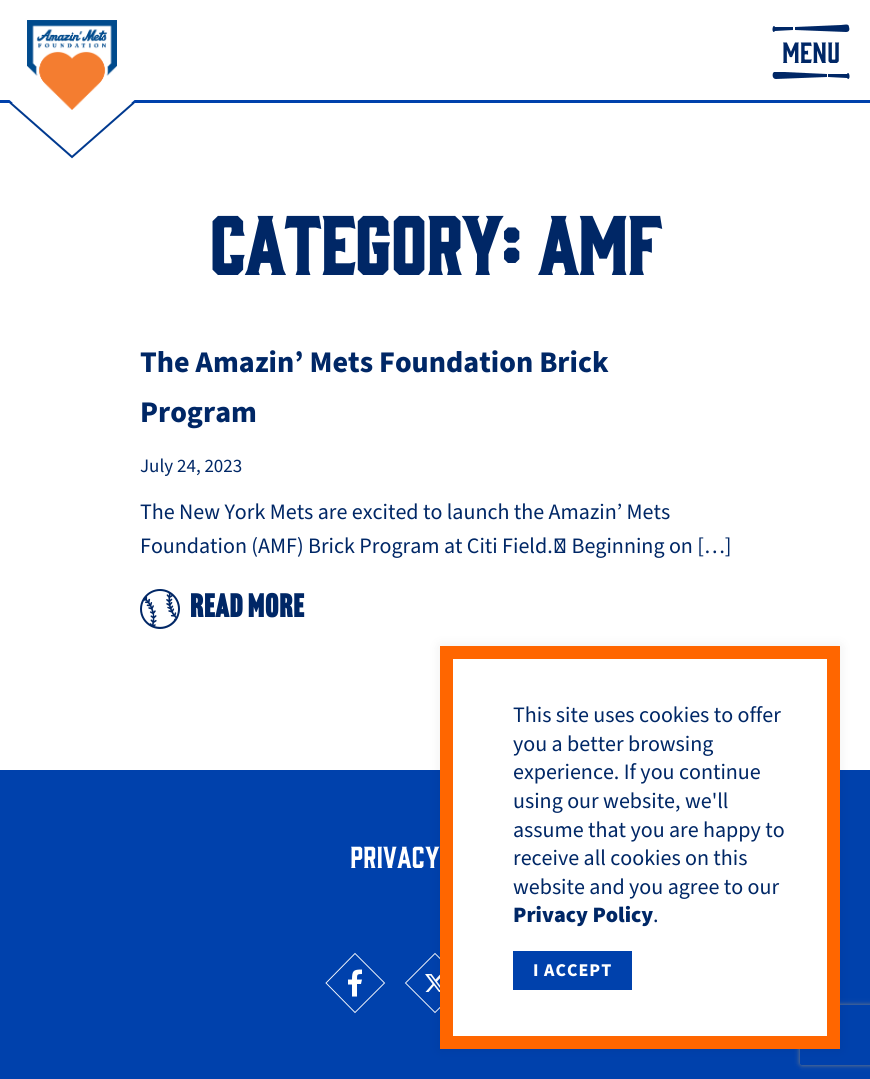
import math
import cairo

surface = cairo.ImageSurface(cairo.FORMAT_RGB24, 870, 1079)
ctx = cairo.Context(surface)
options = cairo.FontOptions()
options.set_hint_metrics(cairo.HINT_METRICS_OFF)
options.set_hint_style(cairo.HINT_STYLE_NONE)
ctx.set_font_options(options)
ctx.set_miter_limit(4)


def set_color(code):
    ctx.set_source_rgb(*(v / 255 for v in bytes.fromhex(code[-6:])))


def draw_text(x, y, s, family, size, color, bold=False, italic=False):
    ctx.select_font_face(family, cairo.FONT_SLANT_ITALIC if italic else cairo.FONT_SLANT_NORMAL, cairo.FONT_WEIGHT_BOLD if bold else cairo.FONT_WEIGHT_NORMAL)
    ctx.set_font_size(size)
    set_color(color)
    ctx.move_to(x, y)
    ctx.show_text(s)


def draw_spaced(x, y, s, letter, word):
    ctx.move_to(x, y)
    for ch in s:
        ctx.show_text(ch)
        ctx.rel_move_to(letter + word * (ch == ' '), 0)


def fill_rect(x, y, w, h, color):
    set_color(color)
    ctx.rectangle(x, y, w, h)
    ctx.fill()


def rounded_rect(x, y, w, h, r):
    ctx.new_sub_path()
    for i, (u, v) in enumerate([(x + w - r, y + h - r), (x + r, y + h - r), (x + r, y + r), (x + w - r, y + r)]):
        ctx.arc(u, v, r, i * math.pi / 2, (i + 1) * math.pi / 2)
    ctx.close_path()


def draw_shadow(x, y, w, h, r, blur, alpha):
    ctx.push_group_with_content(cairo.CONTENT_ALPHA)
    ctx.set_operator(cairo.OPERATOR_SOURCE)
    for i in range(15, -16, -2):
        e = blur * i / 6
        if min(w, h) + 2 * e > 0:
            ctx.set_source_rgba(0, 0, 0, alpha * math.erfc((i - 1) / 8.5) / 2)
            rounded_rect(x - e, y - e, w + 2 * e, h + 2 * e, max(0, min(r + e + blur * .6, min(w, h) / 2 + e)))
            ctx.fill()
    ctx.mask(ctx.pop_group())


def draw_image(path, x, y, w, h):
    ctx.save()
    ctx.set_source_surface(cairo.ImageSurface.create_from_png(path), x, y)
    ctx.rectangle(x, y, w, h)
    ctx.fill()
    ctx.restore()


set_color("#ffffff")
ctx.paint()
fill_rect(0, 100, 870, 3, "#0041ac")
set_color("#ffffff")
ctx.new_path()
ctx.move_to(5, 96)
ctx.line_to(72, 156)
ctx.line_to(139, 96)
ctx.fill()
ctx.new_path()
ctx.move_to(10, 102.5)
ctx.line_to(72, 157)
ctx.line_to(134, 102.5)
set_color("#00398f")
ctx.stroke()
draw_image("assets/img1.png", 27, 20, 90, 90)
set_color("#002766")
ctx.new_path()
ctx.move_to(846, 32)
ctx.curve_to(849, 32, 850, 30, 849, 27)
ctx.curve_to(849, 23, 844, 25, 841, 25)
ctx.line_to(795, 27)
ctx.line_to(795, 30)
ctx.close_path()
ctx.move_to(774, 32)
ctx.line_to(775, 31)
ctx.line_to(793, 30)
ctx.line_to(793, 27)
ctx.line_to(775, 27)
ctx.curve_to(773, 23, 771, 32, 774, 32)
ctx.close_path()
ctx.fill()
draw_text(782, 63, "MENU", "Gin", 27, "#002766")
ctx.new_path()
ctx.move_to(776, 79)
ctx.curve_to(773, 79, 772, 76, 773, 73)
ctx.line_to(774, 72)
ctx.line_to(784, 72)
ctx.line_to(827, 74)
ctx.line_to(827, 77)
ctx.close_path()
ctx.move_to(848, 79)
ctx.line_to(847, 78)
ctx.line_to(828, 77)
ctx.line_to(828, 74)
ctx.line_to(847, 74)
ctx.curve_to(849, 70, 851, 79, 848, 79)
ctx.close_path()
ctx.fill()
draw_text(209, 275, "CATEGORY: AMF", "Gin", 75, "#002766", bold=True)
draw_text(140, 372, "The Amazin’ Mets Foundation Brick", "Source Sans Pro", 30, "#002766", bold=True)
draw_text(140, 422, "Program", "Source Sans Pro", 30, "#002766", bold=True)
draw_text(140, 472, "July 24, 2023", "Source Sans Pro", 19, "#002766")
draw_text(140, 519, "The New York Mets are excited to launch the Amazin’ Mets", "Source Sans Pro", 22, "#002766")
draw_text(140, 553, "Foundation (AMF) Brick Program at Citi Field.  Beginning on […]", "Source Sans Pro", 22, "#002766")
draw_image("assets/img2.png", 140, 589, 40, 40)
ctx.select_font_face("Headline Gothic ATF", cairo.FONT_SLANT_NORMAL, cairo.FONT_WEIGHT_BOLD)
ctx.set_font_size(32)
draw_spaced(190, 617, "Read More", 1, 0)
fill_rect(0, 770, 870, 309, "#0041ac")
draw_text(350, 868, "Privacy", "Gin", 28, "#ffffff")
ctx.new_path()
ctx.move_to(357, 996.5)
ctx.line_to(357, 984)
ctx.line_to(361, 984)
ctx.line_to(362, 979.5)
ctx.line_to(357, 979.5)
ctx.curve_to(357, 974.5, 357, 974, 362, 974)
ctx.line_to(362, 969.5)
ctx.curve_to(353.5, 969.5, 352, 970.5, 352, 979.5)
ctx.line_to(348, 979.5)
ctx.line_to(348, 984.5)
ctx.line_to(352, 984.5)
ctx.line_to(352, 996.5)
ctx.close_path()
ctx.fill()
ctx.new_path()
ctx.move_to(326, 983)
ctx.line_to(355, 953.5)
ctx.line_to(384.5, 983)
ctx.line_to(355, 1012.5)
ctx.close_path()
ctx.set_line_width(0.9)
ctx.stroke()
ctx.new_path()
ctx.move_to(405.5, 983)
ctx.line_to(435, 953.5)
ctx.line_to(464.5, 983)
ctx.line_to(435, 1012.5)
ctx.close_path()
ctx.stroke()
ctx.new_path()
ctx.move_to(441, 974)
ctx.line_to(444, 974)
ctx.line_to(437, 981.5)
ctx.line_to(445, 992)
ctx.line_to(439, 992)
ctx.line_to(434, 985.5)
ctx.line_to(428.5, 992)
ctx.line_to(425.5, 992)
ctx.line_to(432.5, 984)
ctx.line_to(425, 974)
ctx.line_to(431.5, 974)
ctx.line_to(435.5, 979.5)
ctx.line_to(440.5, 974)
ctx.close_path()
ctx.move_to(439.5, 990)
ctx.line_to(441.5, 990)
ctx.line_to(430.5, 975.5)
ctx.line_to(428.5, 975.5)
ctx.close_path()
ctx.fill()
set_color("#000000")
draw_shadow(440, 646, 400, 403, 0, 7, 0.07)
ctx.save()
ctx.set_fill_rule(cairo.FILL_RULE_EVEN_ODD)
ctx.new_path()
ctx.move_to(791, 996)
ctx.line_to(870, 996)
ctx.line_to(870, 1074)
ctx.line_to(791, 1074)
ctx.close_path()
ctx.move_to(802, 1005)
ctx.line_to(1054, 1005)
ctx.curve_to(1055, 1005, 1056, 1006, 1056, 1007)
ctx.line_to(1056, 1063)
ctx.curve_to(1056, 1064, 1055, 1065, 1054, 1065)
ctx.line_to(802, 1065)
ctx.curve_to(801, 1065, 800, 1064, 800, 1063)
ctx.line_to(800, 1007)
ctx.curve_to(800, 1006, 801, 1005, 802, 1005)
ctx.close_path()
ctx.clip()
set_color("#808080")
draw_shadow(800, 1005, 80, 60, 2, 2.5, 1)
ctx.restore()
set_color("#ffffff")
ctx.rectangle(446.5, 652.5, 387, 390)
ctx.fill_preserve()
set_color("#ff6600")
ctx.set_line_width(13)
ctx.stroke()
draw_text(513, 722, "This site uses cookies to offer", "Source Sans Pro", 22, "#002766")
draw_text(513, 751, "you a better browsing", "Source Sans Pro", 22, "#002766")
draw_text(513, 779, "experience. If you continue", "Source Sans Pro", 22, "#002766")
draw_text(513, 808, "using our website, we'll", "Source Sans Pro", 22, "#002766")
draw_text(513, 837, "assume that you are happy to", "Source Sans Pro", 22, "#002766")
draw_text(513, 865, "receive all cookies on this", "Source Sans Pro", 22, "#002766")
draw_text(513, 894, "website and you agree to our", "Source Sans Pro", 22, "#002766")
draw_text(513, 922, "Privacy Policy", "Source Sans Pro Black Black", 22, "#002766")
draw_text(653, 922, ".", "Source Sans Pro", 22, "#002766")
fill_rect(513, 951, 119, 39, "#0041ac")
ctx.select_font_face("Source Sans Pro", cairo.FONT_SLANT_NORMAL, cairo.FONT_WEIGHT_BOLD)
ctx.set_font_size(18)
set_color("#ffffff")
draw_spaced(533, 976, "I ACCEPT", 1, 0)
surface.write_to_png("output.png")
